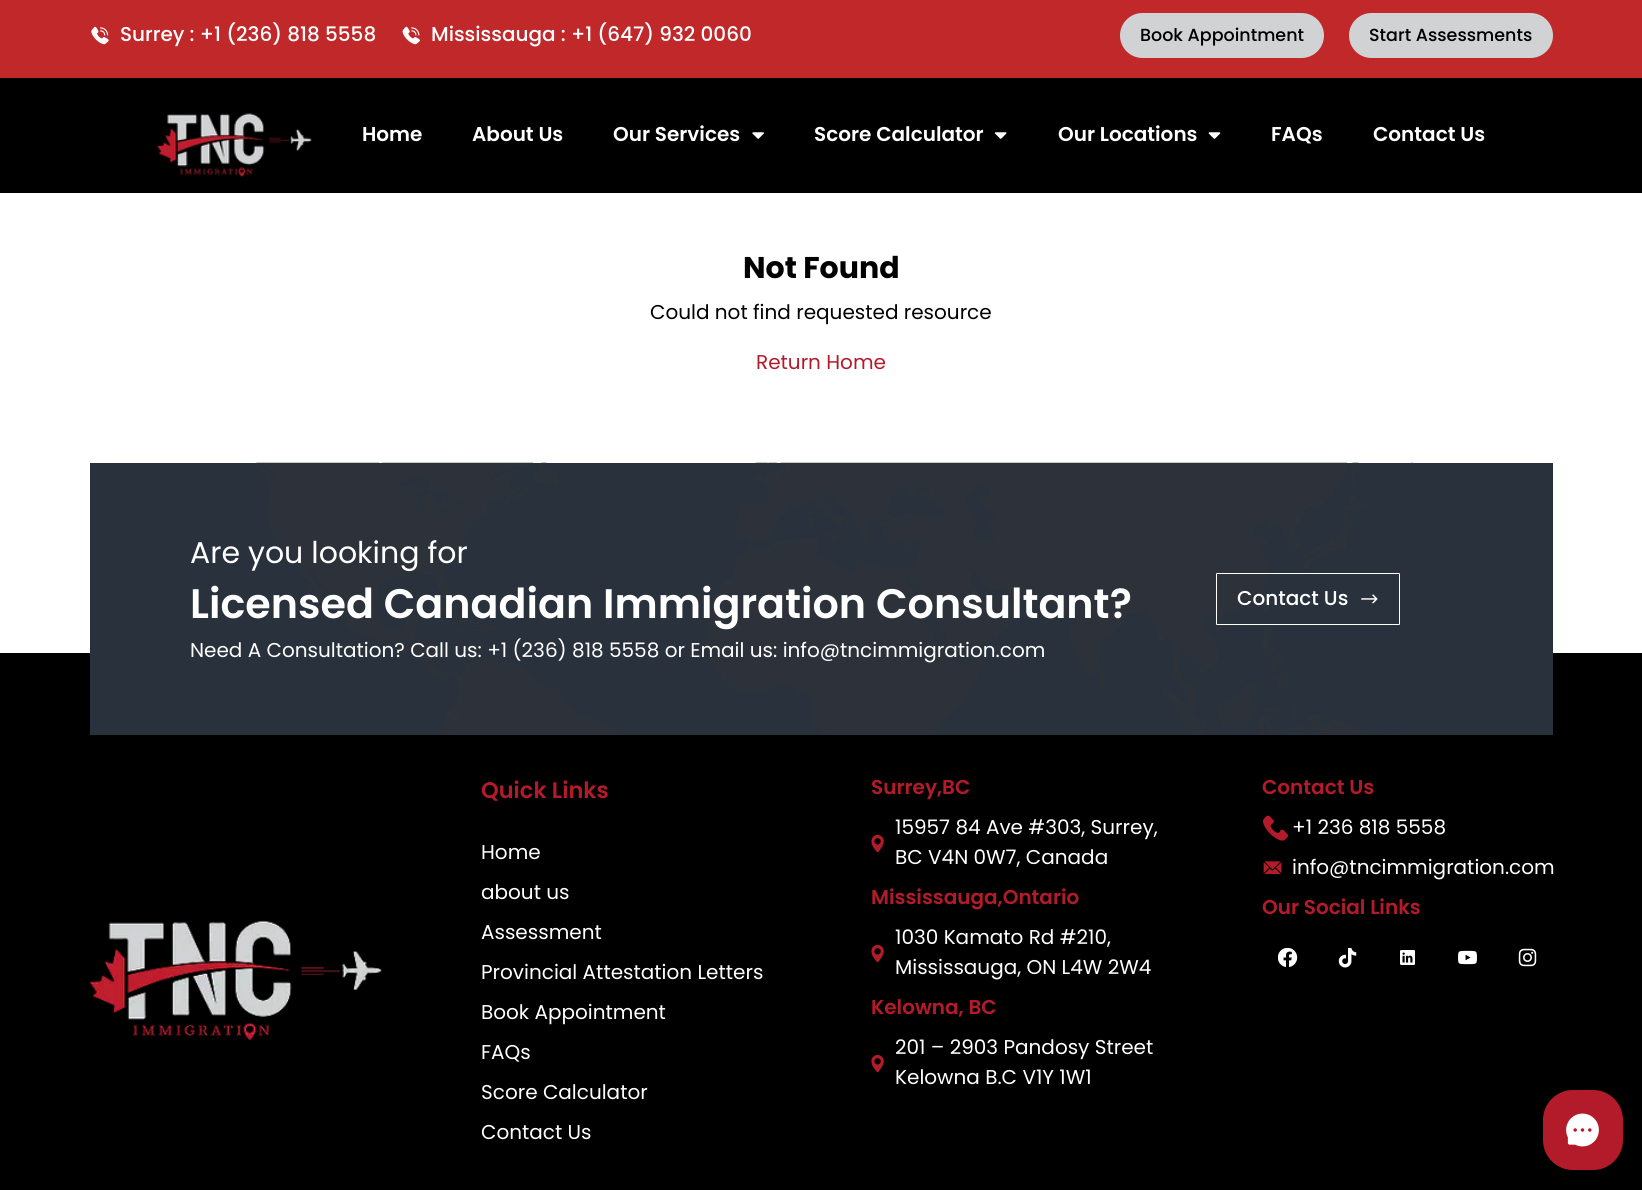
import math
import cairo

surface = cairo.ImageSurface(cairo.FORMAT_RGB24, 1642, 1190)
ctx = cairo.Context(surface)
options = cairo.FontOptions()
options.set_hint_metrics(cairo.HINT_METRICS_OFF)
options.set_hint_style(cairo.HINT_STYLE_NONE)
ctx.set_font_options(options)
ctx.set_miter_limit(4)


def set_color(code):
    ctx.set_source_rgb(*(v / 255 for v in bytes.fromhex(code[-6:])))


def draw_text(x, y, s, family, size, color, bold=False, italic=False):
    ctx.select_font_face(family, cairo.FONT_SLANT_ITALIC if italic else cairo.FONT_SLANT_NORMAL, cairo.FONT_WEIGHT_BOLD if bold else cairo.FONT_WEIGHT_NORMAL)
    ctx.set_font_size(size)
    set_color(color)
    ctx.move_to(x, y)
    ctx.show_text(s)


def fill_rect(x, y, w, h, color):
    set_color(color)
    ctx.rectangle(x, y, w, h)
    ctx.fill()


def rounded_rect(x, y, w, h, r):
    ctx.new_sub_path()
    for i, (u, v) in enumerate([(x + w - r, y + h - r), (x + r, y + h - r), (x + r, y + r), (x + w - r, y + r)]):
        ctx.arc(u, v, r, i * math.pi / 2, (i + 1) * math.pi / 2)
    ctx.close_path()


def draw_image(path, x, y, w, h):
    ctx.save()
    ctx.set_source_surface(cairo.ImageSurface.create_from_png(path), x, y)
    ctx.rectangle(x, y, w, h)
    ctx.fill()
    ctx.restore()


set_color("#ffffff")
ctx.paint()
fill_rect(0, 78, 1642, 115, "#000000")
fill_rect(0, 0, 1642, 78, "#c1282a")
draw_image("assets/img1.png", 91, 26, 18, 19)
draw_text(120, 41, "Surrey : +1 (236) 818 5558", "Poppins Medium", 20, "#ffffff")
draw_image("assets/img2.png", 402, 26, 18, 19)
draw_text(431, 41, "Mississauga : +1 (647) 932 0060", "Poppins Medium", 20, "#ffffff")
set_color("#d1d2d4")
rounded_rect(1120, 13, 204, 45, 22.5)
ctx.fill()
draw_text(1140, 41, "Book Appointment", "Poppins Medium", 17.5, "#000000")
set_color("#d1d2d4")
rounded_rect(1349, 13, 204, 45, 22.5)
ctx.fill()
draw_text(1369, 41, "Start Assessments", "Poppins Medium", 17.5, "#000000")
draw_image("assets/img3.png", 157, 113, 155, 64)
draw_text(362, 141, "Home", "Poppins SemiBold", 20, "#ffffff")
draw_text(472, 141, "About Us", "Poppins SemiBold", 20, "#ffffff")
draw_text(613, 141, "Our Services", "Poppins SemiBold", 20, "#ffffff")
draw_image("assets/img4.png", 752, 132, 12, 7)
draw_text(814, 141, "Score Calculator", "Poppins SemiBold", 20, "#ffffff")
draw_image("assets/img5.png", 994, 132, 13, 7)
draw_text(1058, 141, "Our Locations", "Poppins SemiBold", 20, "#ffffff")
draw_image("assets/img6.png", 1208, 132, 13, 7)
draw_text(1271, 141, "FAQs", "Poppins SemiBold", 20, "#ffffff")
draw_text(1373, 141, "Contact Us", "Poppins SemiBold", 20, "#ffffff")
draw_text(743, 278, "Not Found", "Poppins", 30, "#000000", bold=True)
draw_text(650, 319, "Could not find requested resource", "Poppins", 20, "#000000")
draw_text(756, 369, "Return Home", "Poppins", 20, "#b41b2a")
fill_rect(0, 653, 1642, 537, "#000000")
fill_rect(90, 463, 1463, 272, "#29313c")
draw_image("assets/img7.png", 252, 462, 1161, 272)
draw_text(190, 563, "Are you looking for", "Poppins", 30, "#ffffff")
draw_text(190, 618, "Licensed Canadian Immigration Consultant?", "Poppins SemiBold", 41.25, "#ffffff")
draw_text(190, 657, "Need A Consultation? Call us: +1 (236) 818 5558 or Email us: info@tncimmigration.com", "Poppins", 20, "#ffffff")
rounded_rect(1216.5, 573.5, 183, 51, 0.5)
ctx.set_line_width(1)
ctx.stroke()
draw_text(1237, 605, "Contact Us", "Poppins Medium", 20, "#ffffff")
draw_image("assets/img8.png", 1361, 594, 17, 10)
draw_image("assets/img9.png", 90, 920, 292, 121)
draw_text(481, 798, "Quick Links", "Poppins SemiBold", 22.5, "#b41b2a")
draw_text(481, 859, "Home", "Poppins", 20, "#ffffff")
draw_text(481, 899, "about us", "Poppins", 20, "#ffffff")
draw_text(481, 939, "Assessment", "Poppins", 20, "#ffffff")
draw_text(481, 979, "Provincial Attestation Letters", "Poppins", 20, "#ffffff")
draw_text(481, 1019, "Book Appointment", "Poppins", 20, "#ffffff")
draw_text(481, 1059, "FAQs", "Poppins", 20, "#ffffff")
draw_text(481, 1099, "Score Calculator", "Poppins", 20, "#ffffff")
draw_text(481, 1139, "Contact Us", "Poppins", 20, "#ffffff")
draw_text(871, 794, "Surrey,BC", "Poppins SemiBold", 20, "#b41b2a")
draw_text(895, 834, "15957 84 Ave #303, Surrey,", "Poppins", 20, "#ffffff")
draw_image("assets/img10.png", 871, 835, 13, 18)
draw_text(895, 864, "BC V4N 0W7, Canada", "Poppins", 20, "#ffffff")
draw_text(871, 904, "Mississauga,Ontario", "Poppins SemiBold", 20, "#b41b2a")
draw_text(895, 944, "1030 Kamato Rd #210,", "Poppins", 20, "#ffffff")
draw_image("assets/img10.png", 871, 945, 13, 18)
draw_text(895, 974, "Mississauga, ON L4W 2W4", "Poppins", 20, "#ffffff")
draw_text(871, 1014, "Kelowna, BC", "Poppins SemiBold", 20, "#b41b2a")
draw_text(895, 1054, "201 – 2903 Pandosy Street", "Poppins", 20, "#ffffff")
draw_image("assets/img10.png", 871, 1055, 13, 18)
draw_text(895, 1084, "Kelowna B.C V1Y 1W1", "Poppins", 20, "#ffffff")
draw_text(1262, 794, "Contact Us", "Poppins SemiBold", 20, "#b41b2a")
draw_image("assets/img11.png", 1263, 815, 25, 26)
draw_text(1292, 834, "+1 236 818 5558", "Poppins", 20, "#ffffff")
draw_image("assets/img12.png", 1263, 861, 19, 13)
draw_text(1292, 874, "info@tncimmigration.com", "Poppins", 20, "#ffffff")
draw_text(1262, 914, "Our Social Links", "Poppins SemiBold", 20, "#b41b2a")
draw_image("assets/img13.png", 1278, 948, 20, 19)
draw_image("assets/img14.png", 1338, 948, 19, 20)
draw_image("assets/img15.png", 1400, 950, 15, 15)
draw_image("assets/img16.png", 1458, 950, 19, 15)
draw_image("assets/img17.png", 1518, 948, 19, 19)
rounded_rect(1543, 1090, 80, 80, 30)
ctx.fill()
draw_image("assets/img18.png", 1566, 1113, 33, 34)
surface.write_to_png("output.png")
